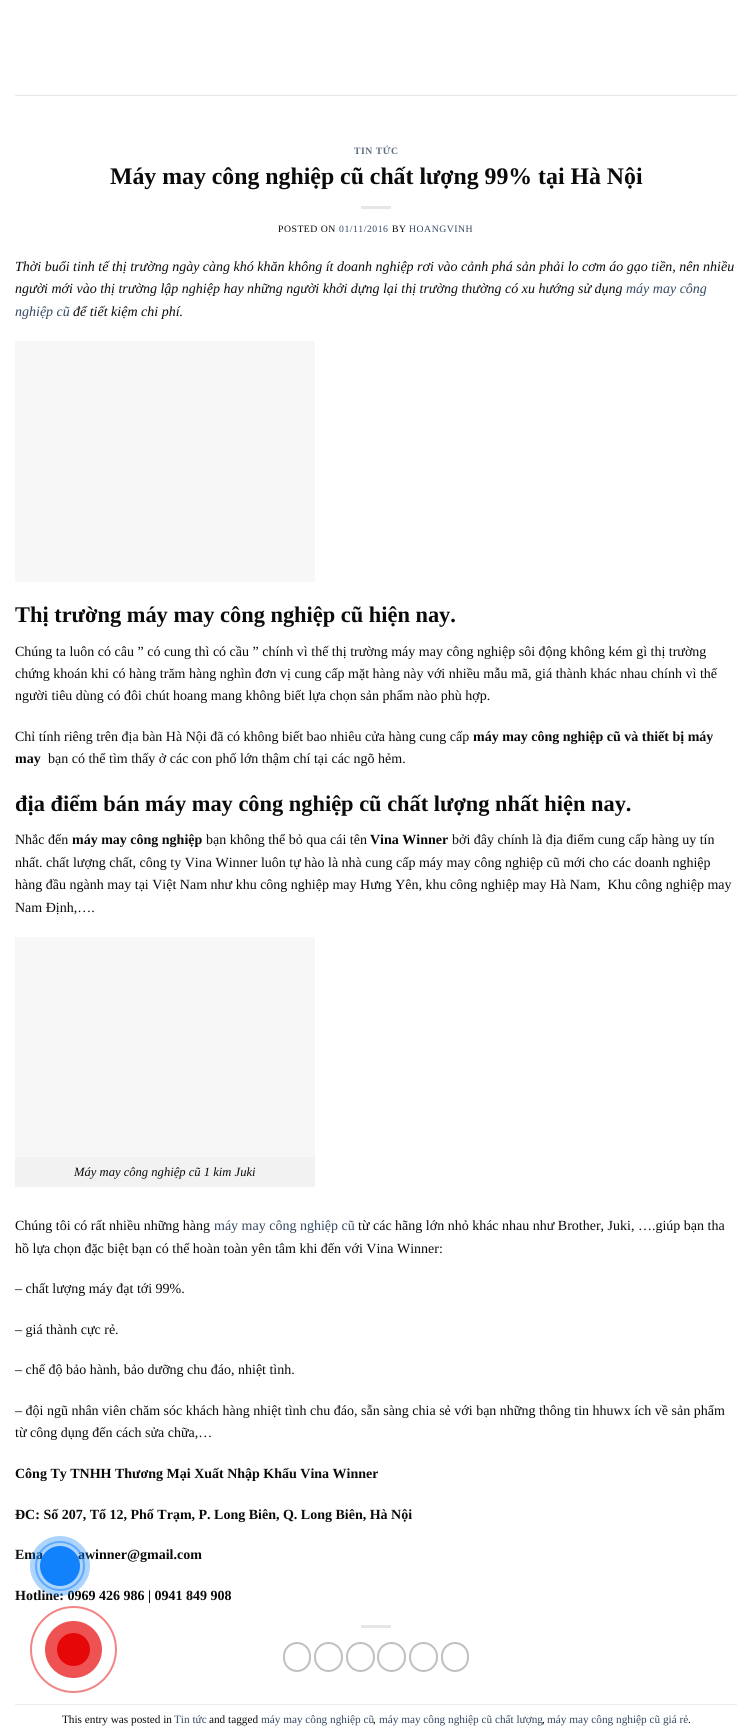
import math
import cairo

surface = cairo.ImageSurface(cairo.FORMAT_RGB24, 752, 1726)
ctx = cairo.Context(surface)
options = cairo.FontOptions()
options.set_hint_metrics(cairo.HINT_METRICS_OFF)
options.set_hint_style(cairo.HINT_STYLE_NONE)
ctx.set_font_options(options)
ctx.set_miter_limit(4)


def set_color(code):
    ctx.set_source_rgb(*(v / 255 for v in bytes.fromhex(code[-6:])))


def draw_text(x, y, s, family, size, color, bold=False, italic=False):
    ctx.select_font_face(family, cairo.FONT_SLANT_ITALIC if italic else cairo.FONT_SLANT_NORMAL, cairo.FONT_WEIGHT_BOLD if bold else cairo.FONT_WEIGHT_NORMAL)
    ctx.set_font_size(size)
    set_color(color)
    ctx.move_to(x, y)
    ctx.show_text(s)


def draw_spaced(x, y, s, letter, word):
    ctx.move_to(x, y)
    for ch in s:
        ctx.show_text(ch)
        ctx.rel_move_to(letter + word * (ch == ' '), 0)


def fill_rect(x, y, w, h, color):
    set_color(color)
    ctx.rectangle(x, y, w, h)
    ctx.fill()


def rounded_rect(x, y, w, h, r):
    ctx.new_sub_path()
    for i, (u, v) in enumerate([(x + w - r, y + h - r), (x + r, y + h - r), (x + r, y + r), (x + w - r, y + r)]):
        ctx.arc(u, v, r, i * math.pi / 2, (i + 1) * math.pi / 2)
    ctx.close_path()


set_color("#ffffff")
ctx.paint()
fill_rect(15, 95, 722, 1, "#e7e7e7")
ctx.select_font_face("Liberation Serif", cairo.FONT_SLANT_NORMAL, cairo.FONT_WEIGHT_BOLD)
ctx.set_font_size(9.75)
set_color("#5c6d81")
draw_spaced(354, 154, "TIN TỨC", 0.5, 0)
draw_text(110, 184, "Máy may công nghiệp cũ chất lượng 99% tại Hà Nội", "Liberation Serif", 23.8, "#0a0a0a", bold=True)
fill_rect(361, 206, 30, 3, "#e6e6e6")
ctx.select_font_face("Liberation Serif")
ctx.set_font_size(9.75)
set_color("#0a0a0a")
draw_spaced(278, 232, "POSTED ON", 0.5, 0)
set_color("#334862")
draw_spaced(339, 232, "01/11/2016", 0.5, 0)
set_color("#0a0a0a")
draw_spaced(392, 232, "BY", 0.5, 0)
set_color("#334862")
draw_spaced(409, 232, "HOANGVINH", 0.5, 0)
draw_text(15, 271, "Thời buổi tinh tế thị trường ngày càng khó khăn không ít doanh nghiệp rơi vào cảnh phá sản phải lo cơm áo gạo tiền, nên nhiều", "Liberation Serif", 14, "#0a0a0a", italic=True)
draw_text(15, 293, "người mới vào thị trường lập nghiệp hay những người khởi dựng lại thị trường thường có xu hướng sử dụng", "Liberation Serif", 14, "#0a0a0a", italic=True)
draw_text(626, 293, "máy may công", "Liberation Serif", 14, "#334862", italic=True)
draw_text(15, 316, "nghiệp cũ", "Liberation Serif", 14, "#334862", italic=True)
draw_text(73, 316, "để tiết kiệm chi phí.", "Liberation Serif", 14, "#0a0a0a", italic=True)
fill_rect(15, 341, 300, 241, "#f7f7f7")
draw_text(15, 622, "Thị trường máy may công nghiệp cũ hiện nay.", "Liberation Serif", 22.4, "#0a0a0a", bold=True)
draw_text(15, 656, "Chúng ta luôn có câu ” có cung thì có cầu ” chính vì thế thị trường máy may công nghiệp sôi động không kém gì thị trường", "Liberation Serif", 14, "#0a0a0a")
draw_text(15, 678, "chứng khoán khi có hàng trăm hàng nghìn đơn vị cung cấp mặt hàng này với nhiều mẫu mã, giá thành khác nhau chính vì thế", "Liberation Serif", 14, "#0a0a0a")
draw_text(15, 700, "người tiêu dùng có đôi chút hoang mang không biết lựa chọn sản phẩm nào phù hợp.", "Liberation Serif", 14, "#0a0a0a")
draw_text(15, 741, "Chỉ tính riêng trên địa bàn Hà Nội đã có không biết bao nhiêu cửa hàng cung cấp", "Liberation Serif", 14, "#0a0a0a")
draw_text(473, 741, "máy may công nghiệp cũ và thiết bị máy", "Liberation Serif", 14, "#0a0a0a", bold=True)
draw_text(15, 763, "may", "Liberation Serif", 14, "#0a0a0a", bold=True)
draw_text(48, 763, "bạn có thể tìm thấy ở các con phố lớn thậm chí tại các ngõ hẻm.", "Liberation Serif", 14, "#0a0a0a")
draw_text(15, 811, "địa điểm bán máy may công nghiệp cũ chất lượng nhất hiện nay.", "Liberation Serif", 22.4, "#0a0a0a", bold=True)
draw_text(15, 844, "Nhắc đến", "Liberation Serif", 14, "#0a0a0a")
draw_text(72, 844, "máy may công nghiệp", "Liberation Serif", 14, "#0a0a0a", bold=True)
draw_text(206, 844, "bạn không thể bỏ qua cái tên", "Liberation Serif", 14, "#0a0a0a")
draw_text(370, 844, "Vina Winner", "Liberation Serif", 14, "#0a0a0a", bold=True)
draw_text(452, 844, "bởi đây chính là địa điểm cung cấp hàng uy tín", "Liberation Serif", 14, "#0a0a0a")
draw_text(15, 867, "nhất. chất lượng chất, công ty Vina Winner luôn tự hào là nhà cung cấp máy may công nghiệp cũ mới cho các doanh nghiệp", "Liberation Serif", 14, "#0a0a0a")
draw_text(15, 889, "hàng đầu ngành may tại Việt Nam như khu công nghiệp may Hưng Yên, khu công nghiệp may Hà Nam,  Khu công nghiệp may", "Liberation Serif", 14, "#0a0a0a")
draw_text(15, 912, "Nam Định,….", "Liberation Serif", 14, "#0a0a0a")
fill_rect(15, 937, 300, 220, "#f7f7f7")
fill_rect(15, 1157, 300, 30, "#f2f2f2")
draw_text(74, 1176, "Máy may công nghiệp cũ 1 kim Juki", "Liberation Serif", 12.6, "#0a0a0a", italic=True)
draw_text(15, 1230, "Chúng tôi có rất nhiều những hàng", "Liberation Serif", 14, "#0a0a0a")
draw_text(214, 1230, "máy may công nghiệp cũ", "Liberation Serif", 14, "#334862")
draw_text(358, 1230, "từ các hãng lớn nhỏ khác nhau như Brother, Juki, ….giúp bạn tha", "Liberation Serif", 14, "#0a0a0a")
draw_text(15, 1253, "hồ lựa chọn đặc biệt bạn có thể hoàn toàn yên tâm khi đến với Vina Winner:", "Liberation Serif", 14, "#0a0a0a")
draw_text(15, 1293, "– chất lượng máy đạt tới 99%.", "Liberation Serif", 14, "#0a0a0a")
draw_text(15, 1334, "– giá thành cực rẻ.", "Liberation Serif", 14, "#0a0a0a")
draw_text(15, 1374, "– chế độ bảo hành, bảo dưỡng chu đáo, nhiệt tình.", "Liberation Serif", 14, "#0a0a0a")
draw_text(15, 1415, "– đội ngũ nhân viên chăm sóc khách hàng nhiệt tình chu đáo, sẵn sàng chia sẻ với bạn những thông tin hhuwx ích về sản phẩm", "Liberation Serif", 14, "#0a0a0a")
draw_text(15, 1437, "từ công dụng đến cách sửa chữa,…", "Liberation Serif", 14, "#0a0a0a")
draw_text(15, 1478, "Công Ty TNHH Thương Mại Xuất Nhập Khẩu Vina Winner", "Liberation Serif", 14, "#0a0a0a", bold=True)
draw_text(15, 1519, "ĐC: Số 207, Tổ 12, Phố Trạm, P. Long Biên, Q. Long Biên, Hà Nội", "Liberation Serif", 14, "#0a0a0a", bold=True)
draw_text(15, 1559, "Ema", "Liberation Serif", 14, "#0a0a0a", bold=True)
draw_text(78, 1559, "awinner@gmail.com", "Liberation Serif", 14, "#0a0a0a", bold=True)
draw_text(15, 1600, "Hotline: 0969 426 986 | 0941 849 908", "Liberation Serif", 14, "#0a0a0a", bold=True)
fill_rect(361, 1625, 30, 3, "#e6e6e6")
rounded_rect(284, 1643, 26, 28, 13)
set_color("#c0c0c0")
ctx.stroke()
rounded_rect(315, 1643, 27, 28, 13.5)
ctx.stroke()
rounded_rect(347, 1643, 27, 28, 13.5)
ctx.stroke()
rounded_rect(378, 1643, 27, 28, 13.5)
ctx.stroke()
rounded_rect(410, 1643, 27, 28, 13.5)
ctx.stroke()
rounded_rect(442, 1643, 26, 28, 13)
ctx.stroke()
fill_rect(15, 1704, 722, 1, "#ececec")
draw_text(62, 1723, "This entry was posted in", "Liberation Serif", 11.25, "#0a0a0a")
draw_text(174, 1723, "Tin tức", "Liberation Serif", 11.25, "#334862")
draw_text(209, 1723, "and tagged", "Liberation Serif", 11.25, "#0a0a0a")
draw_text(261, 1723, "máy may công nghiệp cũ", "Liberation Serif", 11.25, "#334862")
draw_text(373, 1723, ",", "Liberation Serif", 11.25, "#0a0a0a")
draw_text(379, 1723, "máy may công nghiệp cũ chất lượng", "Liberation Serif", 11.25, "#334862")
draw_text(542, 1723, ",", "Liberation Serif", 11.25, "#0a0a0a")
draw_text(547, 1723, "máy may công nghiệp cũ giá rẻ", "Liberation Serif", 11.25, "#334862")
draw_text(688, 1723, ".", "Liberation Serif", 11.25, "#0a0a0a")
ctx.new_path()
ctx.arc(60, 1566, 24, 0, 2 * math.pi)
ctx.set_source_rgba(0.067, 0.51, 0.988, 0.5)
ctx.stroke()
ctx.set_source_rgba(0.067, 0.51, 0.988, 0.34)
ctx.arc(60, 1566, 30, 0, 2 * math.pi)
ctx.fill()
set_color("#1182fc")
ctx.arc(60, 1566, 20, 0, 2 * math.pi)
ctx.fill()
ctx.arc(73.5, 1649.5, 42.5, 0, 2 * math.pi)
set_color("#f38484")
ctx.stroke()
set_color("#ee5252")
ctx.arc(73.5, 1649.5, 28.5, 0, 2 * math.pi)
ctx.fill()
set_color("#e60808")
ctx.arc(73.5, 1649.5, 16.5, 0, 2 * math.pi)
ctx.fill()
surface.write_to_png("output.png")
